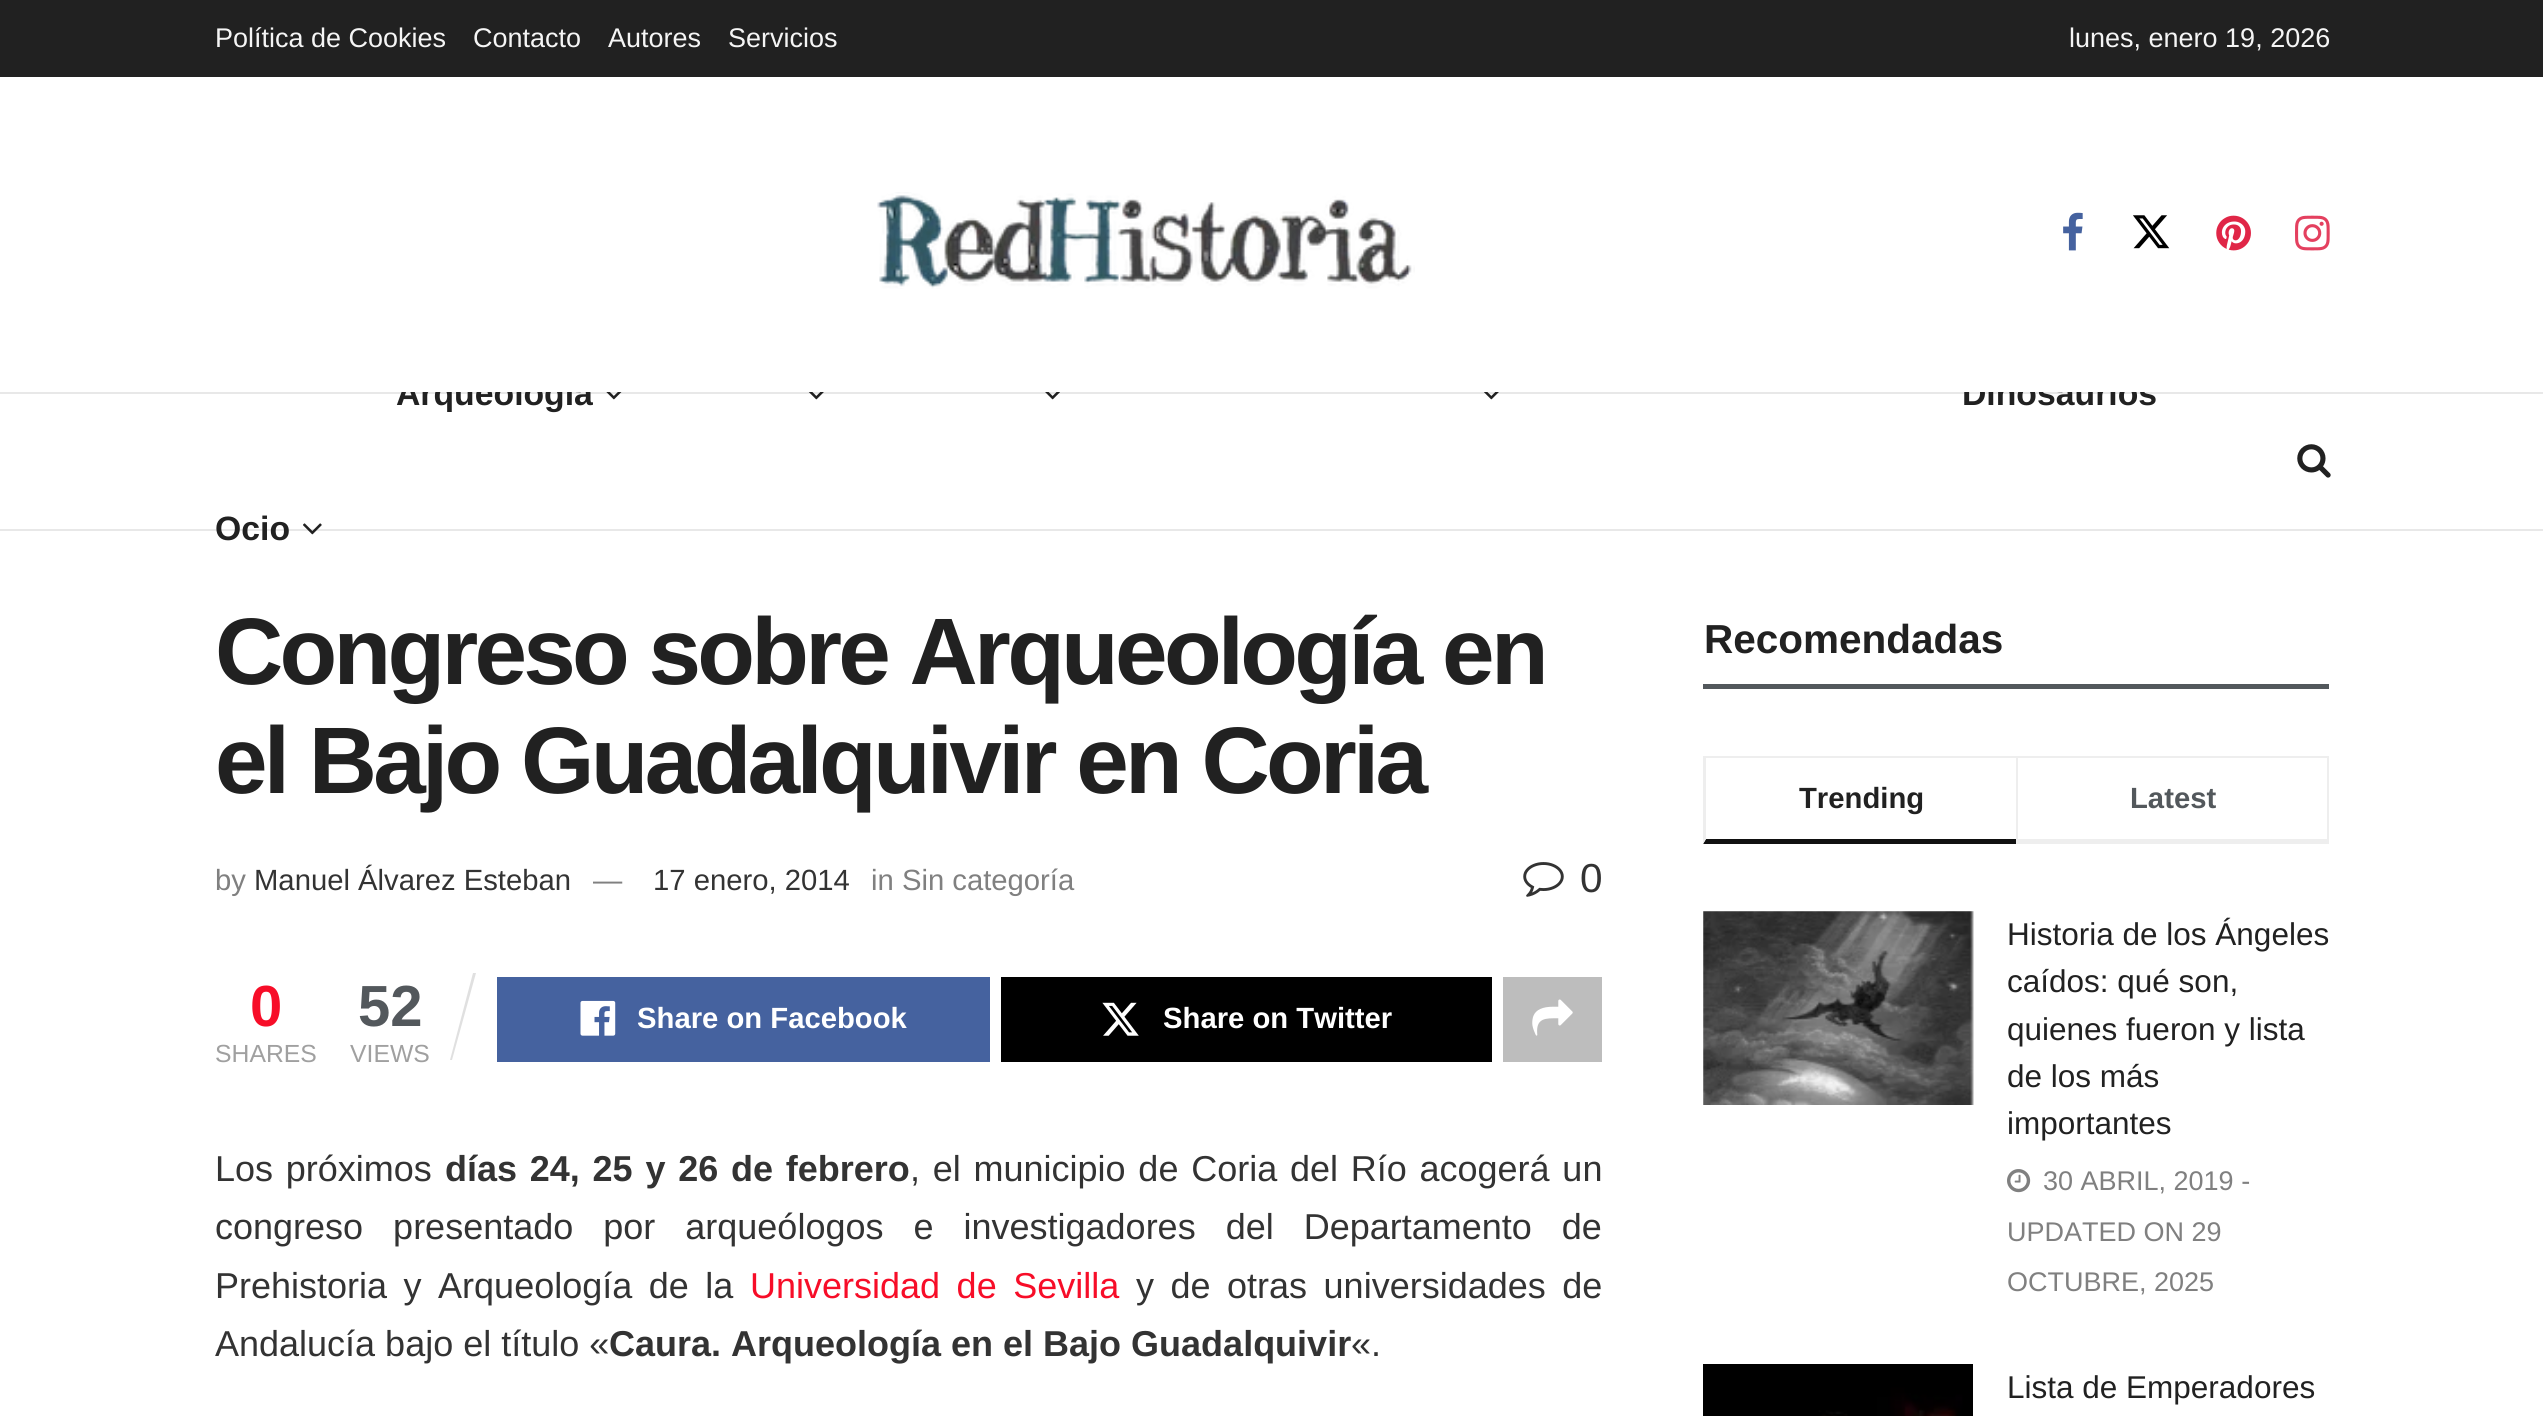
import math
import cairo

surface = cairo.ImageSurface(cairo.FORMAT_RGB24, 2543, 1416)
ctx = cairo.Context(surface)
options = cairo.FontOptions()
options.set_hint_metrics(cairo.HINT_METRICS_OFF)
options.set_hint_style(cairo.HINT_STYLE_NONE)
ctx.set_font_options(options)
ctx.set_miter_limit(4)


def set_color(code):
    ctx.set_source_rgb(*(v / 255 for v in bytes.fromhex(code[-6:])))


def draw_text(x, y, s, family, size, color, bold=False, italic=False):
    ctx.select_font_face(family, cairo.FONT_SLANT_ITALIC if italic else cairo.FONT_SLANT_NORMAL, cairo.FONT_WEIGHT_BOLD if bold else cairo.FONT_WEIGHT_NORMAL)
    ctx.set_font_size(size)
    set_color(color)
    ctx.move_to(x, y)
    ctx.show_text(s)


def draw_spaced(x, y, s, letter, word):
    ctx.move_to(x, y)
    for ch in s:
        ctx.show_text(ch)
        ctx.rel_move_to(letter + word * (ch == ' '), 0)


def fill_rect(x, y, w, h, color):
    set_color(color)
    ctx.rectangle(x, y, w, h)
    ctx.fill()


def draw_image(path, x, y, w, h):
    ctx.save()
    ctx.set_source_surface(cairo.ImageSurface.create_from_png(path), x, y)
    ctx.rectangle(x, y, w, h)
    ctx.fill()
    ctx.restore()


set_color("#ffffff")
ctx.paint()
fill_rect(0, 0, 2543, 77, "#212121")
draw_text(215, 47, "Política de Cookies", "Liberation Sans", 27, "#f5f5f5")
draw_text(473, 47, "Contacto", "Liberation Sans", 27, "#f5f5f5")
draw_text(608, 47, "Autores", "Liberation Sans", 27, "#f5f5f5")
draw_text(728, 47, "Servicios", "Liberation Sans", 27, "#f5f5f5")
draw_text(2069, 47, "lunes, enero 19, 2026", "Liberation Sans", 27, "#f5f5f5")
fill_rect(0, 392, 2543, 2, "#e8e8e8")
draw_text(396, 405, "Arqueología", "Liberation Sans", 33.75, "#212121", bold=True)
draw_text(1962, 405, "Dinosaurios", "Liberation Sans", 33.75, "#212121", bold=True)
fill_rect(401, 380, 1755, 12, "#ffffff")
draw_image("assets/img1.png", 877, 192, 538, 97)
draw_image("assets/img2.png", 2063, 212, 20, 39)
draw_image("assets/img3.png", 2133, 215, 37, 34)
draw_image("assets/img4.png", 2216, 215, 35, 36)
draw_image("assets/img5.png", 2295, 215, 35, 36)
fill_rect(0, 529, 2543, 2, "#e8e8e8")
draw_image("assets/img6.png", 606, 392, 16, 8)
draw_image("assets/img7.png", 808, 392, 16, 8)
draw_image("assets/img8.png", 1045, 392, 15, 8)
draw_image("assets/img7.png", 1483, 392, 16, 8)
draw_text(215, 540, "Ocio", "Liberation Sans", 33.75, "#212121", bold=True)
draw_image("assets/img9.png", 303, 523, 19, 12)
draw_image("assets/img10.png", 2297, 444, 34, 34)
ctx.set_font_size(94.5)
draw_spaced(215, 684, "Congreso sobre Arqueología en", -3.75, 0)
draw_spaced(215, 793, "el Bajo Guadalquivir en Coria", -3.75, 0)
draw_text(215, 890, "by", "Liberation Sans", 29.25, "#808080")
draw_text(254, 890, "Manuel Álvarez Esteban", "Liberation Sans", 29.25, "#333333")
draw_text(593, 890, "—", "Liberation Sans", 29.25, "#808080")
draw_text(653, 890, "17 enero, 2014", "Liberation Sans", 29.25, "#333333")
draw_text(871, 890, "in Sin categoría", "Liberation Sans", 29.25, "#808080")
draw_image("assets/img11.png", 1523, 862, 41, 35)
draw_text(1580, 892, "0", "Liberation Sans", 40.5, "#333333")
draw_text(250, 1026, "0", "Liberation Sans", 58, "#f70d28", bold=True)
draw_text(215, 1062, "SHARES", "Liberation Sans", 24.75, "#a0a0a0")
draw_text(358, 1026, "52", "Liberation Sans", 58, "#53585c", bold=True)
set_color("#e0e0e0")
ctx.new_path()
ctx.move_to(473, 973)
ctx.line_to(476, 973)
ctx.line_to(452, 1060)
ctx.line_to(450, 1060)
ctx.close_path()
ctx.fill()
draw_text(350, 1062, "VIEWS", "Liberation Sans", 24.75, "#a0a0a0")
fill_rect(497, 977, 493, 85, "#45629f")
draw_image("assets/img12.png", 580, 1000, 36, 36)
draw_text(637, 1028, "Share on Facebook", "Liberation Sans", 29.25, "#ffffff", bold=True)
fill_rect(1001, 977, 491, 85, "#000000")
draw_image("assets/img13.png", 1102, 1002, 37, 34)
draw_text(1163, 1028, "Share on Twitter", "Liberation Sans", 29.25, "#ffffff", bold=True)
fill_rect(1503, 977, 99, 85, "#bdbdbd")
draw_image("assets/img14.png", 1532, 999, 41, 37)
ctx.select_font_face("Liberation Sans")
ctx.set_font_size(36)
set_color("#333333")
draw_spaced(215, 1181, "Los próximos", 0, 2.75)
ctx.select_font_face("Liberation Sans", cairo.FONT_SLANT_NORMAL, cairo.FONT_WEIGHT_BOLD)
draw_spaced(445, 1181, "días 24, 25 y 26 de febrero", 0, 2.75)
ctx.select_font_face("Liberation Sans")
draw_spaced(910, 1181, ", el municipio de Coria del Río acogerá un", 0, 2.75)
draw_spaced(215, 1239, "congreso presentado por arqueólogos e investigadores del Departamento de", 0, 20)
draw_spaced(215, 1298, "Prehistoria y Arqueología de la", 0, 6.5)
set_color("#f70d28")
draw_spaced(750, 1298, "Universidad de Sevilla", 0, 6.5)
set_color("#333333")
draw_spaced(1136, 1298, "y de otras universidades de", 0, 6.5)
draw_text(215, 1356, "Andalucía bajo el título «", "Liberation Sans", 36, "#333333")
draw_text(609, 1356, "Caura. Arqueología en el Bajo Guadalquivir", "Liberation Sans", 36, "#333333", bold=True)
draw_text(1351, 1356, "«.", "Liberation Sans", 36, "#333333")
fill_rect(1703, 684, 626, 5, "#53585c")
draw_text(1704, 653, "Recomendadas", "Liberation Sans", 40.5, "#212121", bold=True)
fill_rect(1703, 756, 626, 2, "#eeeeee")
set_color("#111111")
ctx.new_path()
ctx.move_to(2016, 844)
ctx.line_to(1703, 844)
ctx.line_to(1706, 839)
ctx.line_to(2016, 839)
ctx.close_path()
ctx.fill()
set_color("#eeeeee")
ctx.new_path()
ctx.move_to(1703, 844)
ctx.line_to(1703, 756)
ctx.line_to(1706, 758)
ctx.line_to(1706, 839)
ctx.close_path()
ctx.fill()
draw_text(1799, 808, "Trending", "Liberation Sans", 29.25, "#212121", bold=True)
fill_rect(2327, 756, 2, 88, "#eeeeee")
fill_rect(2016, 839, 313, 5, "#eeeeee")
fill_rect(2016, 756, 2, 88, "#eeeeee")
draw_text(2130, 808, "Latest", "Liberation Sans", 29.25, "#53585c", bold=True)
fill_rect(1703, 911, 270, 194, "#f7f7f7")
draw_image("assets/img16.png", 1929, 911, 45, 194)
draw_image("assets/img15.png", 1703, 911, 271, 194)
draw_text(2007, 945, "Historia de los Ángeles", "Liberation Sans", 31.5, "#212121")
draw_text(2007, 992, "caídos: qué son,", "Liberation Sans", 31.5, "#212121")
draw_text(2007, 1040, "quienes fueron y lista", "Liberation Sans", 31.5, "#212121")
draw_text(2007, 1087, "de los más", "Liberation Sans", 31.5, "#212121")
draw_text(2007, 1134, "importantes", "Liberation Sans", 31.5, "#212121")
draw_image("assets/img17.png", 2007, 1169, 24, 24)
draw_text(2043, 1190, "30 ABRIL, 2019 -", "Liberation Sans", 27, "#808080")
draw_text(2007, 1241, "UPDATED ON 29", "Liberation Sans", 27, "#808080")
draw_text(2007, 1291, "OCTUBRE, 2025", "Liberation Sans", 27, "#808080")
draw_image("assets/img18.png", 1703, 1364, 270, 52)
draw_text(2007, 1398, "Lista de Emperadores", "Liberation Sans", 31.5, "#212121")
surface.write_to_png("output.png")
